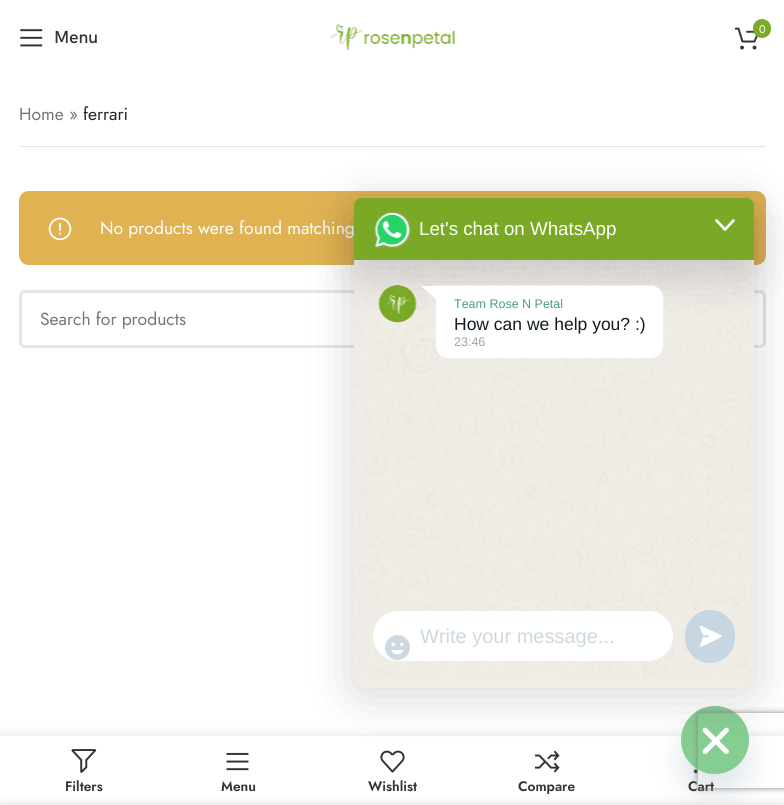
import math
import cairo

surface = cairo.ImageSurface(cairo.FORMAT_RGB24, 784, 805)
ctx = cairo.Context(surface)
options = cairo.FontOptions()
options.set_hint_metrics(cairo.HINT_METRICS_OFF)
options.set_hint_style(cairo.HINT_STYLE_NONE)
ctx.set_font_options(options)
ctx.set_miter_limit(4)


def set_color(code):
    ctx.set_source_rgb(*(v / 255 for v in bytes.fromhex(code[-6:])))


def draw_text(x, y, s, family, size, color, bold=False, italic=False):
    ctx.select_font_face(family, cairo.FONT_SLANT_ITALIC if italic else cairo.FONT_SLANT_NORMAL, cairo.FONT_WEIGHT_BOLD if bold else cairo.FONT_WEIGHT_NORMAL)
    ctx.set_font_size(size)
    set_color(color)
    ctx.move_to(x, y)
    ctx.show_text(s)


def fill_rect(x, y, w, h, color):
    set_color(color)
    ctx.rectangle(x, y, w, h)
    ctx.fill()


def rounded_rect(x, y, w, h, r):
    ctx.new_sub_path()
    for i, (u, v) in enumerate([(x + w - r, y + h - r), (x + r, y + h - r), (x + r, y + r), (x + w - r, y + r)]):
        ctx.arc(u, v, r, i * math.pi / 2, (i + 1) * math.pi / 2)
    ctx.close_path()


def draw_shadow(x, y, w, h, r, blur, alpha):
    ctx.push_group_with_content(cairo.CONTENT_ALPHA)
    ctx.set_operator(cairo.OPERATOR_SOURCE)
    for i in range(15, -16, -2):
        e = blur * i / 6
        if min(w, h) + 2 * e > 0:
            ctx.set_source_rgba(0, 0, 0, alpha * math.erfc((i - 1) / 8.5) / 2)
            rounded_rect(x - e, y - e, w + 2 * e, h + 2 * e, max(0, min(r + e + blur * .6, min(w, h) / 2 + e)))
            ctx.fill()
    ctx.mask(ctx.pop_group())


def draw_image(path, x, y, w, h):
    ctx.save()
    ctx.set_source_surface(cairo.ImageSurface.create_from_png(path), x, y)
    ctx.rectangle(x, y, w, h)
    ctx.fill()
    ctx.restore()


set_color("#ffffff")
ctx.paint()
draw_image("assets/img1.png", 20, 29, 23, 18)
draw_text(54, 43, "Menu", "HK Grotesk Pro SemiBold", 17.5, "#333333")
draw_image("assets/img2.png", 330, 24, 125, 27)
draw_image("assets/img3.png", 735, 27, 23, 23)
set_color("#7baa27")
rounded_rect(753, 19, 18, 19, 9)
ctx.fill()
draw_text(759, 33, "0", "Jost", 11, "#ffffff")
fill_rect(19, 146, 747, 1, "#e4e4e4")
draw_text(19, 120, "Home", "Jost", 17.5, "#767676")
draw_text(69, 120, "»", "Jost", 17.5, "#767676")
draw_text(83, 120, "ferrari", "Jost", 17.5, "#242424")
set_color("#e0b252")
rounded_rect(19, 191, 747, 74, 10)
ctx.fill()
draw_image("assets/img4.png", 48, 217, 24, 24)
draw_text(100, 234, "No products were found matching", "Jost", 17.5, "#ffffff")
rounded_rect(20.5, 291.5, 744, 55, 4.5)
set_color("#e6e6e6")
ctx.set_line_width(3)
ctx.stroke()
draw_text(40, 325, "Search for products", "Jost", 17.5, "#767676")
set_color("#000000")
draw_shadow(0, 736, 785, 69, 0, 5.5, 0.12)
fill_rect(0, 736, 784, 69, "#ffffff")
draw_image("assets/img15.png", 693, 769, 16, 5)
set_color("#49687e")
draw_shadow(681, 726, 68, 68, 34, 15, 0.16)
draw_image("assets/img10.png", 681, 706, 68, 68)
draw_image("assets/img13.png", 380, 750, 25, 23)
draw_image("assets/img14.png", 535, 750, 25, 23)
set_color("#000000")
draw_shadow(354, 204, 400, 490, 8, 25, 0.16)
set_color("#f0ede7")
rounded_rect(354, 198, 400, 490, 10)
ctx.fill()
draw_image("assets/img6.png", 354, 260, 399, 418)
set_color("#1a0e35")
draw_shadow(354, 218, 400, 62, 8, 20, 0.16)
set_color("#79a925")
ctx.new_path()
ctx.move_to(362, 198)
ctx.line_to(746, 198)
ctx.curve_to(750.5, 198, 754, 201.5, 754, 206)
ctx.line_to(754, 260)
ctx.line_to(354, 260)
ctx.line_to(354, 206)
ctx.curve_to(354, 201.5, 357.5, 198, 362, 198)
ctx.close_path()
ctx.fill()
draw_image("assets/img5.png", 374, 211, 37, 38)
draw_text(419, 235, "Let's chat on WhatsApp", "Liberation Sans", 18.75, "#ffffff")
ctx.new_path()
ctx.move_to(716.5, 220.5)
ctx.line_to(725, 229.5)
ctx.line_to(733.5, 220.5)
ctx.set_line_width(2.7)
ctx.set_line_cap(cairo.LINE_CAP_ROUND)
ctx.set_line_join(cairo.LINE_JOIN_ROUND)
ctx.stroke()
draw_image("assets/img7.png", 378, 285, 39, 38)
ctx.new_path()
ctx.move_to(435, 285)
ctx.line_to(651, 285)
ctx.curve_to(658, 285, 664, 291, 664, 298)
ctx.line_to(664, 346)
ctx.curve_to(664, 353, 658, 359, 651, 359)
ctx.line_to(448, 359)
ctx.curve_to(441, 359, 435, 353, 435, 346)
ctx.close_path()
ctx.fill()
ctx.new_path()
ctx.move_to(435.5, 285.5)
ctx.line_to(651, 285.5)
ctx.curve_to(658, 285.5, 663.5, 291, 663.5, 298)
ctx.line_to(663.5, 346)
ctx.curve_to(663.5, 353, 658, 358.5, 651, 358.5)
ctx.line_to(448, 358.5)
ctx.curve_to(441, 358.5, 435.5, 353, 435.5, 346)
ctx.close_path()
ctx.set_source_rgba(0.133, 0.067, 0.278, 0.08)
ctx.set_line_width(1)
ctx.set_line_cap(cairo.LINE_CAP_BUTT)
ctx.set_line_join(cairo.LINE_JOIN_MITER)
ctx.stroke()
set_color("#ffffff")
ctx.new_path()
ctx.move_to(436, 286)
ctx.line_to(436, 299)
ctx.line_to(421, 286)
ctx.close_path()
ctx.fill()
draw_text(454, 308, "Team Rose N Petal", "Liberation Sans", 12.5, "#489d81")
draw_text(454, 330, "How can we help you? :)", "Liberation Sans", 17.5, "#111b21")
draw_text(454, 346, "23:46", "Liberation Sans", 12.5, "#a1a1a9")
set_color("#ffffff")
rounded_rect(373, 611, 300, 50, 25)
ctx.fill()
draw_image("assets/img8.png", 385, 635, 25, 25)
draw_text(420, 643, "Write your message...", "Liberation Sans", 20, "#cdd9e2")
set_color("#c6d7e3")
rounded_rect(685, 610, 50, 53, 25)
ctx.fill()
draw_image("assets/img9.png", 699, 625, 23, 22)
draw_image("assets/img11.png", 71, 749, 26, 24)
draw_text(65, 791, "Filters", "Jost SemiBold", 13.75, "#333333")
draw_image("assets/img12.png", 226, 752, 23, 19)
draw_text(221, 791, "Menu", "Jost SemiBold", 13.75, "#333333")
draw_text(368, 791, "Wishlist", "Jost SemiBold", 13.75, "#333333")
draw_text(518, 791, "Compare", "Jost SemiBold", 13.75, "#333333")
draw_text(688, 791, "Cart", "Jost SemiBold", 13.75, "#333333")
ctx.save()
ctx.set_fill_rule(cairo.FILL_RULE_EVEN_ODD)
ctx.new_path()
ctx.move_to(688, 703)
ctx.line_to(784, 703)
ctx.line_to(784, 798)
ctx.line_to(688, 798)
ctx.close_path()
ctx.move_to(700.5, 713)
ctx.line_to(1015.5, 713)
ctx.curve_to(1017, 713, 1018, 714, 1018, 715.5)
ctx.line_to(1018, 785.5)
ctx.curve_to(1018, 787, 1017, 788, 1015.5, 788)
ctx.line_to(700.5, 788)
ctx.curve_to(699, 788, 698, 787, 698, 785.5)
ctx.line_to(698, 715.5)
ctx.curve_to(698, 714, 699, 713, 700.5, 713)
ctx.close_path()
ctx.clip()
set_color("#808080")
draw_shadow(698, 713, 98, 75, 2.5, 3, 1)
ctx.restore()
set_color("#000000")
draw_shadow(0, 805, 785, 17, 0, 5.5, 0.14)
surface.write_to_png("output.png")
